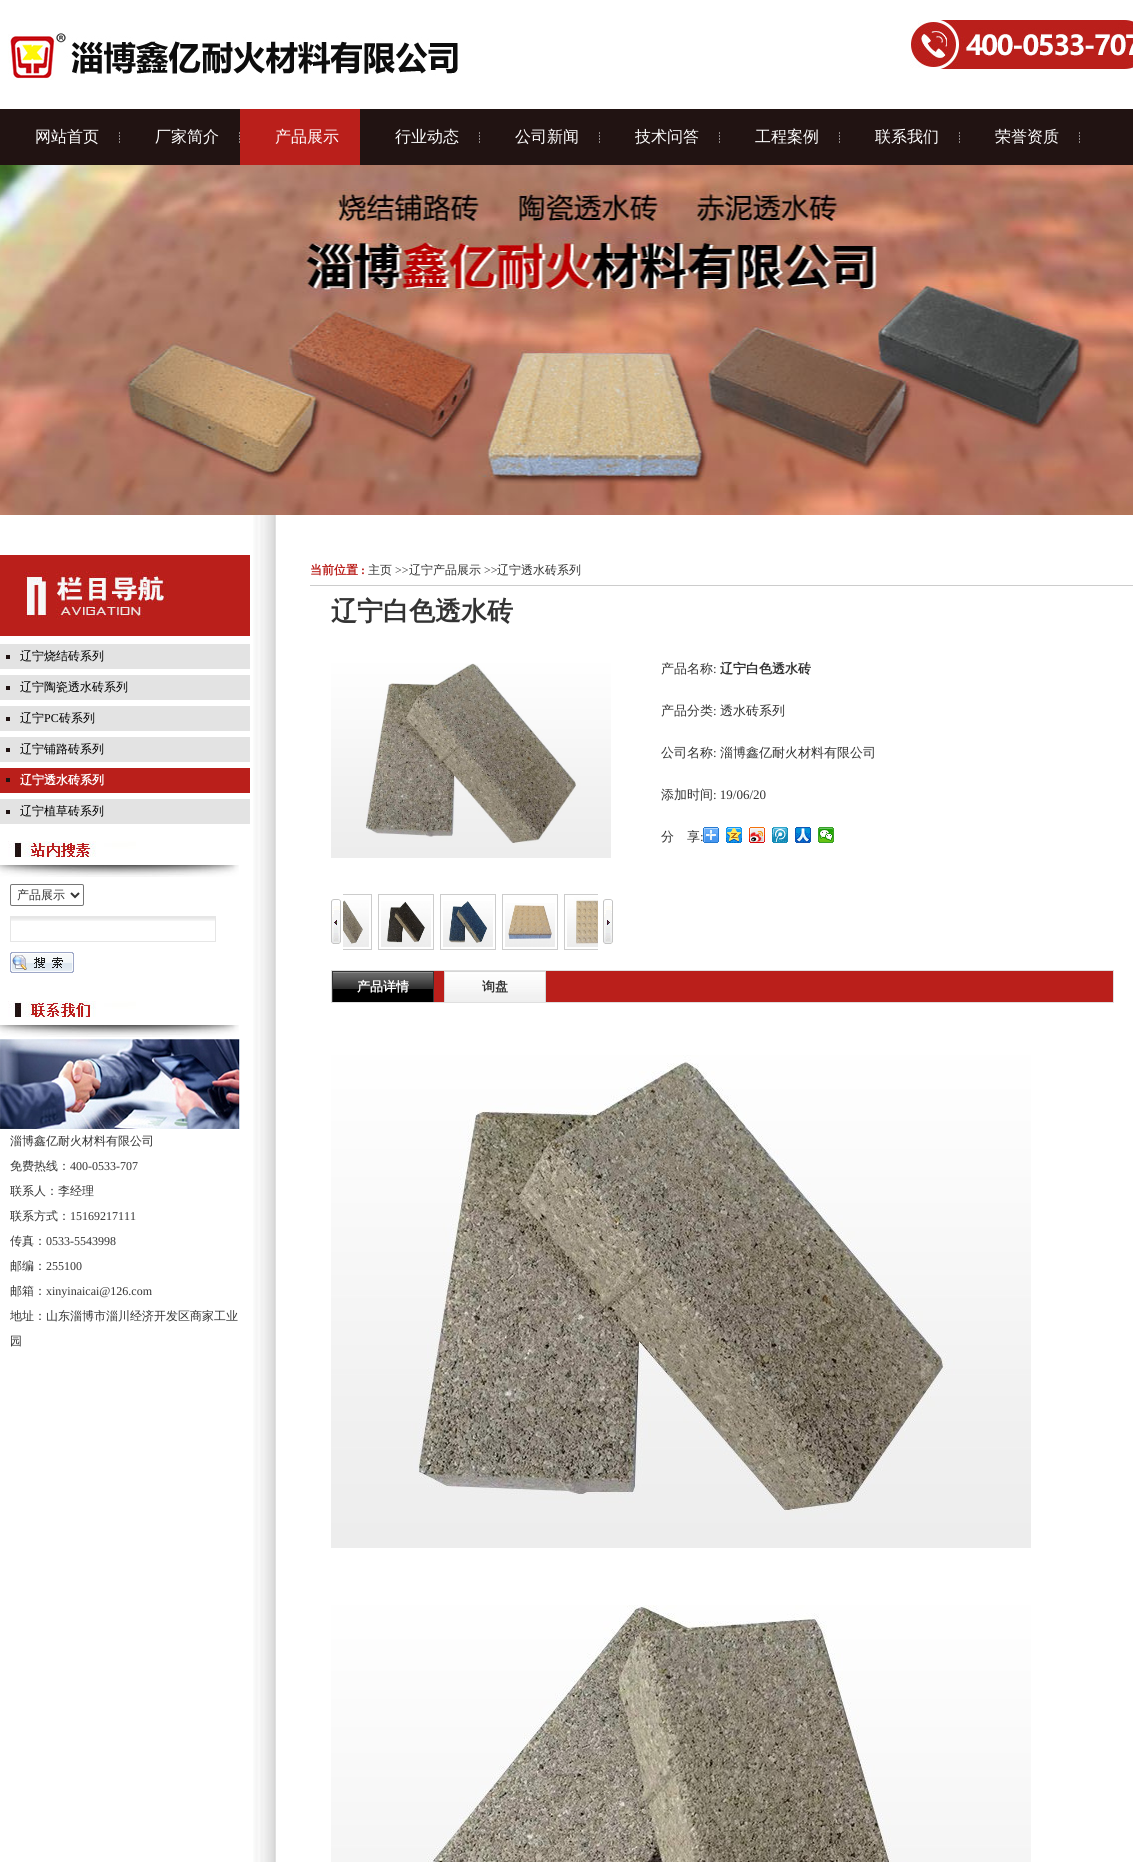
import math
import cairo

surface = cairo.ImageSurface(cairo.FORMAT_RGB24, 1133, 1862)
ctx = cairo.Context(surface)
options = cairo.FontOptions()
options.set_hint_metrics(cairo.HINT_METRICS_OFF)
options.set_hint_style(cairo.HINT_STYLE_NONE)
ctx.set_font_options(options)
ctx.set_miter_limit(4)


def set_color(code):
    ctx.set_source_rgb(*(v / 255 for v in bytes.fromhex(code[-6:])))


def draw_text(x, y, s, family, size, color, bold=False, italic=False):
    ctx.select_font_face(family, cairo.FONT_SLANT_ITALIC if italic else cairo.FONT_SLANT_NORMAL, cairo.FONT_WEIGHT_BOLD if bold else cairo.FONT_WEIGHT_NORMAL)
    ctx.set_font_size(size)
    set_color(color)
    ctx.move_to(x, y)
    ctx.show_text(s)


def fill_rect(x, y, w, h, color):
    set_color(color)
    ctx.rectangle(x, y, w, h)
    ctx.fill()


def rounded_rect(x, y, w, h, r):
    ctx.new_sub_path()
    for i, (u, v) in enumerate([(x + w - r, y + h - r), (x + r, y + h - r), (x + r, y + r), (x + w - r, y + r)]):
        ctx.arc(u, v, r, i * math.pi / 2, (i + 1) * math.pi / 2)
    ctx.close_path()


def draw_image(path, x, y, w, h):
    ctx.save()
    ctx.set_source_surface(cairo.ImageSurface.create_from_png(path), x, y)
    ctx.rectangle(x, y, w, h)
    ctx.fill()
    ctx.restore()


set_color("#ffffff")
ctx.paint()
draw_image("assets/img1.png", 8, 33, 450, 47)
draw_image("assets/img2.png", 910, 20, 223, 49)
fill_rect(0, 109, 1133, 56, "#211312")
draw_image("assets/img3.png", 119, 132, 1, 11)
draw_text(35, 142, "网站首页", "WenQuanYi Zen Hei Medium", 16, "#ffffff")
draw_image("assets/img3.png", 239, 132, 1, 11)
draw_text(155, 142, "厂家简介", "WenQuanYi Zen Hei Medium", 16, "#ffffff")
fill_rect(240, 109, 120, 56, "#ba1f1b")
draw_text(275, 142, "产品展示", "WenQuanYi Zen Hei Medium", 16, "#ffffff")
draw_image("assets/img3.png", 479, 132, 1, 11)
draw_text(395, 142, "行业动态", "WenQuanYi Zen Hei Medium", 16, "#ffffff")
draw_image("assets/img3.png", 599, 132, 1, 11)
draw_text(515, 142, "公司新闻", "WenQuanYi Zen Hei Medium", 16, "#ffffff")
draw_image("assets/img3.png", 719, 132, 1, 11)
draw_text(635, 142, "技术问答", "WenQuanYi Zen Hei Medium", 16, "#ffffff")
draw_image("assets/img3.png", 839, 132, 1, 11)
draw_text(755, 142, "工程案例", "WenQuanYi Zen Hei Medium", 16, "#ffffff")
draw_image("assets/img3.png", 959, 132, 1, 11)
draw_text(875, 142, "联系我们", "WenQuanYi Zen Hei Medium", 16, "#ffffff")
draw_image("assets/img3.png", 1079, 132, 1, 11)
draw_text(995, 142, "荣誉资质", "WenQuanYi Zen Hei Medium", 16, "#ffffff")
draw_image("assets/img4.png", 0, 165, 1133, 350)
draw_image("assets/img5.png", 253, 515, 23, 1347)
draw_image("assets/img6.png", 0, 555, 250, 81)
draw_image("assets/img7.png", 0, 644, 250, 25)
draw_text(20, 660, "辽宁烧结砖系列", "WenQuanYi Zen Hei Medium", 12, "#000000")
draw_image("assets/img7.png", 0, 675, 250, 25)
draw_text(20, 691, "辽宁陶瓷透水砖系列", "WenQuanYi Zen Hei Medium", 12, "#000000")
draw_image("assets/img7.png", 0, 706, 250, 25)
draw_text(20, 722, "辽宁", "WenQuanYi Zen Hei Medium", 12, "#000000")
draw_text(44, 722, "PC", "Liberation Serif", 12, "#000000")
draw_text(59, 722, "砖系列", "WenQuanYi Zen Hei Medium", 12, "#000000")
draw_image("assets/img7.png", 0, 737, 250, 25)
draw_text(20, 753, "辽宁铺路砖系列", "WenQuanYi Zen Hei Medium", 12, "#000000")
draw_image("assets/img8.png", 0, 768, 250, 25)
draw_text(20, 784, "辽宁透水砖系列", "WenQuanYi Zen Hei", 12, "#ffffff", bold=True)
draw_image("assets/img7.png", 0, 799, 250, 25)
draw_text(20, 815, "辽宁植草砖系列", "WenQuanYi Zen Hei Medium", 12, "#000000")
draw_image("assets/img9.png", 0, 841, 239, 36)
rounded_rect(10.5, 884.5, 73, 21, 1.5)
set_color("#767676")
ctx.set_line_width(1)
ctx.stroke()
ctx.new_path()
ctx.move_to(71, 893)
ctx.line_to(75, 897)
ctx.line_to(79, 893)
set_color("#333333")
ctx.set_line_width(2)
ctx.stroke()
draw_text(17, 899, "产品展示", "WenQuanYi Zen Hei Medium", 12, "#333333")
draw_image("assets/img10.png", 11, 917, 204, 4)
ctx.rectangle(10.5, 916.5, 205, 25)
set_color("#e6e6e6")
ctx.set_line_width(1)
ctx.stroke()
draw_image("assets/img11.png", 10, 952, 64, 21)
draw_image("assets/img12.png", 0, 1001, 239, 36)
draw_image("assets/img13.png", 0, 1039, 240, 90)
draw_text(10, 1145, "淄博鑫亿耐火材料有限公司", "WenQuanYi Zen Hei Medium", 12, "#333333")
draw_text(10, 1170, "免费热线：", "WenQuanYi Zen Hei Medium", 12, "#333333")
draw_text(70, 1170, "400-0533-707", "Liberation Serif", 12, "#333333")
draw_text(10, 1195, "联系人：李经理", "WenQuanYi Zen Hei Medium", 12, "#333333")
draw_text(10, 1220, "联系方式：", "WenQuanYi Zen Hei Medium", 12, "#333333")
draw_text(70, 1220, "15169217111", "Liberation Serif", 12, "#333333")
draw_text(10, 1245, "传真：", "WenQuanYi Zen Hei Medium", 12, "#333333")
draw_text(46, 1245, "0533-5543998", "Liberation Serif", 12, "#333333")
draw_text(10, 1270, "邮编：", "WenQuanYi Zen Hei Medium", 12, "#333333")
draw_text(46, 1270, "255100", "Liberation Serif", 12, "#333333")
draw_text(10, 1295, "邮箱：", "WenQuanYi Zen Hei Medium", 12, "#333333")
draw_text(46, 1295, "xinyinaicai@126.com", "Liberation Serif", 12, "#333333")
draw_text(10, 1320, "地址：山东淄博市淄川经济开发区商家工业", "WenQuanYi Zen Hei Medium", 12, "#333333")
draw_text(10, 1345, "园", "WenQuanYi Zen Hei Medium", 12, "#333333")
fill_rect(310, 585, 823, 1, "#cccccc")
draw_text(310, 574, "当前位置", "WenQuanYi Zen Hei", 12, "#ba1f1b", bold=True)
draw_text(361, 574, ":", "Liberation Serif", 12, "#ba1f1b", bold=True)
draw_text(368, 574, "主页", "WenQuanYi Zen Hei Medium", 12, "#333333")
draw_text(395, 574, ">>", "Liberation Serif", 12, "#333333")
draw_text(409, 574, "辽宁产品展示", "WenQuanYi Zen Hei Medium", 12, "#333333")
draw_text(484, 574, ">>", "Liberation Serif", 12, "#333333")
draw_text(497, 574, "辽宁透水砖系列", "WenQuanYi Zen Hei Medium", 12, "#333333")
draw_text(331, 620, "辽宁白色透水砖", "WenQuanYi Zen Hei", 26, "#333333", bold=True)
draw_image("assets/img14.png", 331, 663, 280, 195)
draw_image("assets/img20.png", 331, 899, 10, 45)
ctx.save()
ctx.rectangle(343, 894, 255, 56)
ctx.clip()
ctx.rectangle(316.5, 894.5, 55, 55)
set_color("#cccccc")
ctx.stroke()
ctx.restore()
draw_image("assets/img15.png", 343, 900, 26, 47)
ctx.rectangle(378.5, 894.5, 55, 55)
set_color("#cccccc")
ctx.stroke()
draw_image("assets/img16.png", 381, 901, 50, 46)
ctx.rectangle(440.5, 894.5, 55, 55)
ctx.stroke()
draw_image("assets/img17.png", 443, 901, 50, 46)
ctx.rectangle(502.5, 894.5, 55, 55)
ctx.stroke()
draw_image("assets/img18.png", 505, 903, 50, 44)
draw_image("assets/img21.png", 603, 899, 10, 45)
ctx.save()
ctx.rectangle(343, 894, 255, 56)
ctx.clip()
ctx.rectangle(564.5, 894.5, 55, 55)
ctx.stroke()
ctx.restore()
draw_image("assets/img19.png", 567, 897, 31, 50)
draw_text(661, 673, "产品名称", "WenQuanYi Zen Hei Medium", 13, "#333333")
draw_text(713, 673, ":", "Liberation Serif", 13, "#333333")
draw_text(720, 673, "辽宁白色透水砖", "WenQuanYi Zen Hei", 13, "#333333", bold=True)
draw_text(661, 715, "产品分类", "WenQuanYi Zen Hei Medium", 13, "#333333")
draw_text(713, 715, ":", "Liberation Serif", 13, "#333333")
draw_text(720, 715, "透水砖系列", "WenQuanYi Zen Hei Medium", 13, "#333333")
draw_text(661, 757, "公司名称", "WenQuanYi Zen Hei Medium", 13, "#333333")
draw_text(713, 757, ":", "Liberation Serif", 13, "#333333")
draw_text(720, 757, "淄博鑫亿耐火材料有限公司", "WenQuanYi Zen Hei Medium", 13, "#333333")
draw_text(661, 799, "添加时间", "WenQuanYi Zen Hei Medium", 13, "#333333")
draw_text(713, 799, ": 19/06/20", "Liberation Serif", 13, "#333333")
draw_text(661, 841, "分", "WenQuanYi Zen Hei Medium", 13, "#333333")
draw_text(687, 841, "享", "WenQuanYi Zen Hei Medium", 13, "#333333")
draw_text(700, 841, ":", "Liberation Serif", 13, "#333333")
draw_image("assets/img22.png", 703, 827, 16, 16)
draw_image("assets/img23.png", 726, 827, 16, 16)
draw_image("assets/img24.png", 749, 827, 16, 16)
draw_image("assets/img25.png", 772, 827, 16, 16)
draw_image("assets/img26.png", 795, 827, 16, 16)
draw_image("assets/img27.png", 818, 827, 16, 16)
fill_rect(434, 971, 679, 31, "#ba1f1b")
ctx.rectangle(331.5, 970.5, 782, 32)
set_color("#dfdfdf")
ctx.stroke()
draw_image("assets/img28.png", 333, 972, 100, 30)
fill_rect(332, 971, 102, 1, "#333333")
fill_rect(433, 971, 1, 31, "#333333")
fill_rect(332, 971, 1, 31, "#333333")
draw_text(357, 991, "产品详情", "WenQuanYi Zen Hei", 13, "#ffffff", bold=True)
draw_image("assets/img29.png", 445, 972, 100, 30)
fill_rect(444, 971, 102, 1, "#d6d6d6")
fill_rect(545, 971, 1, 31, "#d6d6d6")
fill_rect(444, 971, 1, 31, "#d6d6d6")
draw_text(482, 991, "询盘", "WenQuanYi Zen Hei", 13, "#333333", bold=True)
draw_image("assets/img30.png", 331, 1055, 700, 493)
draw_image("assets/img31.png", 331, 1605, 700, 257)
surface.write_to_png("output.png")
